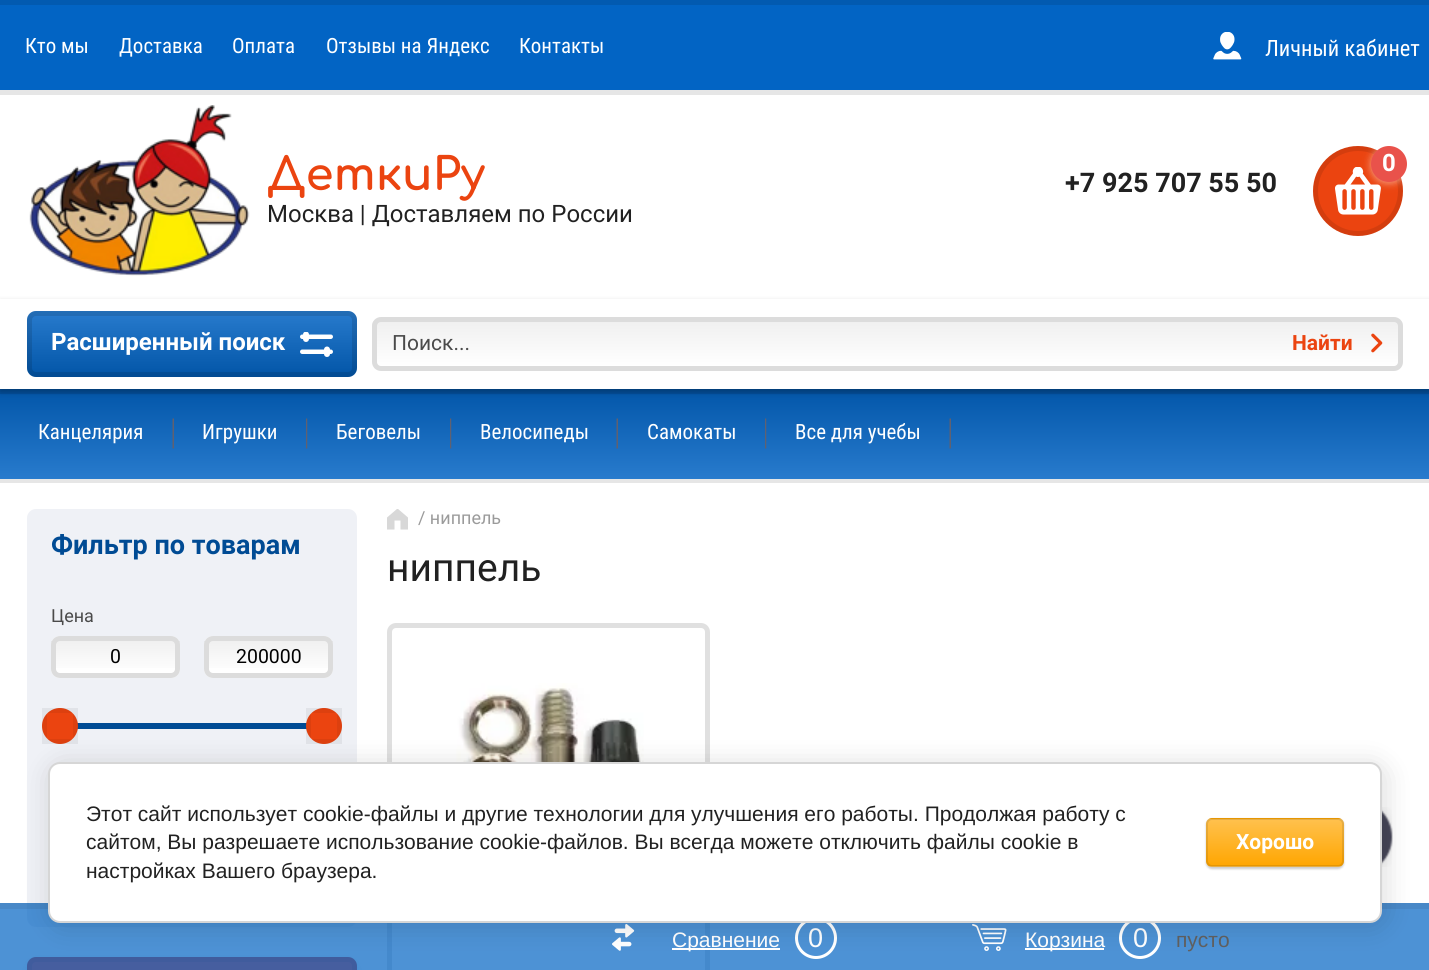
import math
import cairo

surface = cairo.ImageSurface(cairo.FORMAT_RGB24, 1429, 970)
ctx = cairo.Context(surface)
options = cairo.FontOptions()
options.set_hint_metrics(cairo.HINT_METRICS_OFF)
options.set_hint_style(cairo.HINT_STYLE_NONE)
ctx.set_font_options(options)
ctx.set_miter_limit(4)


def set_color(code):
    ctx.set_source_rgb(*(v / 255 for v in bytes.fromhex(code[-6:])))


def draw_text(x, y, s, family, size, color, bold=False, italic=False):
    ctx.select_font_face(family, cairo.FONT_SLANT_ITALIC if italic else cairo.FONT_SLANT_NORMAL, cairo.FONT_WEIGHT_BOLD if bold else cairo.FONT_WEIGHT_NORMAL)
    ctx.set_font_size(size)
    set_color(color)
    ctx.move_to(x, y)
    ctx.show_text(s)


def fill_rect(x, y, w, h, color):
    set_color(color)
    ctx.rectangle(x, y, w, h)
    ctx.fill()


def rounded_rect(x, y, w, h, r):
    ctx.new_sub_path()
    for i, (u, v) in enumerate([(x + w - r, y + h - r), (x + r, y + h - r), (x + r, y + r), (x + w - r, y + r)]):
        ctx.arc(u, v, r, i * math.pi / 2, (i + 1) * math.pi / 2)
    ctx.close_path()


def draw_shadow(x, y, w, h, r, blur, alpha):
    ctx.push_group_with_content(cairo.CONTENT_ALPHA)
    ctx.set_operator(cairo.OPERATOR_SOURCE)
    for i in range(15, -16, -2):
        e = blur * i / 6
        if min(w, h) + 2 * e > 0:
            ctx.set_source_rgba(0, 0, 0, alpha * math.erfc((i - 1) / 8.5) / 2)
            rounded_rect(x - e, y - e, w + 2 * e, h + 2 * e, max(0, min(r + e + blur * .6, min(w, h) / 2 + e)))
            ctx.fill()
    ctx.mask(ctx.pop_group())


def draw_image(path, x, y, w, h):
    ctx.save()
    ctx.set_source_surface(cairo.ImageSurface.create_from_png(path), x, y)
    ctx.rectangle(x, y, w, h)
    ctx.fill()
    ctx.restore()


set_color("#ffffff")
ctx.paint()
set_color("#e6e6e6")
ctx.new_path()
ctx.move_to(0, 90)
ctx.line_to(0, 95)
ctx.line_to(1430, 95)
ctx.line_to(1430, 5)
ctx.line_to(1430, 90)
ctx.close_path()
ctx.fill()
fill_rect(0, 5, 1429, 85, "#0264c4")
fill_rect(0, 0, 1429, 5, "#025ab0")
draw_text(25, 53, "Кто мы", "Roboto Condensed", 21, "#ffffff")
draw_text(119, 53, "Доставка", "Roboto Condensed", 21, "#ffffff")
draw_text(232, 53, "Оплата", "Roboto Condensed", 21, "#ffffff")
draw_text(326, 53, "Отзывы на Яндекс", "Roboto Condensed", 21, "#ffffff")
draw_text(519, 53, "Контакты", "Roboto Condensed", 21, "#ffffff")
draw_image("assets/img1.png", 1213, 32, 29, 28)
draw_text(1265, 56, "Личный кабинет", "Roboto Condensed", 22.5, "#ffffff")
draw_image("assets/img2.png", 29, 105, 221, 171)
draw_text(267, 190, "ДеткиРу", "Comfortaa", 45, "#eb4410", bold=True)
draw_text(267, 222, "Москва | Доставляем по России", "Roboto", 24, "#212121")
draw_text(1065, 192, "+7 925 707 55 50", "Roboto", 27, "#212121", bold=True)
set_color("#eb4410")
ctx.new_path()
ctx.arc(1358, 191, 45, 0, 2 * math.pi)
ctx.fill()
ctx.arc(1358, 191, 42.5, 0, 2 * math.pi)
ctx.set_source_rgba(0, 0, 0, 0.1)
ctx.set_line_width(5)
ctx.stroke()
draw_image("assets/img3.png", 1335, 167, 46, 48)
set_color("#ffffff")
draw_shadow(1371, 147, 36, 36, 18, 4, 0.5)
set_color("#e9524b")
ctx.arc(1389, 164, 18, 0, 2 * math.pi)
ctx.fill()
draw_text(1382, 171, "0", "Roboto", 24, "#ffffff", bold=True)
set_color("#e6e6e6")
ctx.new_path()
ctx.move_to(0, 478)
ctx.line_to(0, 483)
ctx.line_to(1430, 483)
ctx.line_to(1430, 393)
ctx.line_to(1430, 478)
ctx.close_path()
ctx.fill()
gradient = cairo.LinearGradient(715, 479, 715, 389)
gradient.add_color_stop_rgba(0, 0.157, 0.482, 0.804, 1)
gradient.add_color_stop_rgba(1, 0.008, 0.337, 0.663, 1)
ctx.set_source(gradient)
ctx.rectangle(0, 394, 1429, 85)
ctx.fill()
fill_rect(0, 389, 1429, 5, "#034e99")
set_color("#000000")
draw_shadow(0, 302, 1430, 90, 0, 3, 0.25)
fill_rect(0, 299, 1429, 90, "#ffffff")
set_color("#0264c4")
rounded_rect(27, 311, 330, 66, 9)
ctx.fill()
gradient = cairo.LinearGradient(192, 311, 192, 377)
gradient.add_color_stop_rgba(0, 1, 1, 1, 0.15)
gradient.add_color_stop_rgba(1, 0, 0, 0, 0.15)
ctx.set_source(gradient)
rounded_rect(27, 311, 330, 66, 9)
ctx.fill()
rounded_rect(29.5, 313.5, 325, 61, 6.5)
ctx.set_source_rgba(0, 0, 0, 0.12)
ctx.stroke()
draw_text(51, 350, "Расширенный поиск", "Roboto", 24, "#ffffff", bold=True)
draw_image("assets/img4.png", 300, 332, 33, 25)
ctx.save()
rounded_rect(372, 317, 1031, 54, 9)
ctx.clip()
gradient = cairo.LinearGradient(887, 366, 887, 321)
gradient.add_color_stop_rgba(0, 1, 1, 1, 1)
gradient.add_color_stop_rgba(1, 0.941, 0.941, 0.941, 1)
ctx.set_source(gradient)
ctx.rectangle(372, 321, 1031, 45)
ctx.fill()
ctx.restore()
rounded_rect(374.5, 319.5, 1026, 49, 6.5)
set_color("#dcdcdc")
ctx.stroke()
draw_text(392, 350, "Поиск...", "Roboto", 21, "#4a4a4a")
draw_image("assets/img5.png", 1371, 333, 12, 20)
draw_text(1292, 350, "Найти", "Roboto", 21, "#eb4410", bold=True)
draw_image("assets/img6.png", 172, 418, 2, 31)
draw_text(38, 439, "Канцелярия", "Roboto Condensed", 21, "#ffffff")
draw_image("assets/img7.png", 306, 418, 2, 31)
draw_text(202, 439, "Игрушки", "Roboto Condensed", 21, "#ffffff")
draw_image("assets/img7.png", 450, 418, 2, 31)
draw_text(336, 439, "Беговелы", "Roboto Condensed", 21, "#ffffff")
draw_image("assets/img6.png", 616, 418, 2, 31)
draw_text(480, 439, "Велосипеды", "Roboto Condensed", 21, "#ffffff")
draw_image("assets/img7.png", 765, 418, 2, 31)
draw_text(647, 439, "Самокаты", "Roboto Condensed", 21, "#ffffff")
draw_image("assets/img6.png", 949, 418, 2, 31)
draw_text(795, 439, "Все для учебы", "Roboto Condensed", 21, "#ffffff")
set_color("#eff1f6")
rounded_rect(27, 509, 330, 418, 9)
ctx.fill()
draw_text(51, 554, "Фильтр по товарам", "Roboto", 27, "#004b94", bold=True)
draw_text(51, 622, "Цена", "Roboto", 18, "#4a4a4a")
set_color("#ffffff")
rounded_rect(51, 636, 129, 42, 9)
ctx.fill()
gradient = cairo.LinearGradient(116, 674, 116, 641)
gradient.add_color_stop_rgba(0, 1, 1, 1, 0.06)
gradient.add_color_stop_rgba(1, 0, 0, 0, 0.06)
ctx.set_source(gradient)
ctx.rectangle(51, 641, 129, 27)
ctx.fill()
rounded_rect(53.5, 638.5, 124, 37, 6.5)
set_color("#dcdcdc")
ctx.stroke()
draw_text(110, 663, "0", "Roboto", 19.5, "#000000")
set_color("#ffffff")
rounded_rect(204, 636, 129, 42, 9)
ctx.fill()
gradient = cairo.LinearGradient(269, 674, 269, 641)
gradient.add_color_stop_rgba(0, 1, 1, 1, 0.06)
gradient.add_color_stop_rgba(1, 0, 0, 0, 0.06)
ctx.set_source(gradient)
ctx.rectangle(204, 641, 129, 27)
ctx.fill()
rounded_rect(206.5, 638.5, 124, 37, 6.5)
set_color("#dcdcdc")
ctx.stroke()
draw_text(236, 663, "200000", "Roboto", 19.5, "#000000")
fill_rect(77, 723, 238, 6, "#004b94")
set_color("#eb4410")
ctx.new_path()
ctx.arc(60, 726, 18, 0, 2 * math.pi)
ctx.fill()
ctx.rectangle(44.5, 710.5, 31, 31)
ctx.set_source_rgba(0, 0, 0, 0.06)
ctx.stroke()
set_color("#eb4410")
ctx.arc(324, 726, 18, 0, 2 * math.pi)
ctx.fill()
ctx.rectangle(308.5, 710.5, 31, 31)
ctx.set_source_rgba(0, 0, 0, 0.06)
ctx.stroke()
set_color("#000000")
draw_shadow(27, 960, 330, 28, 9, 3, 0.1)
set_color("#e9524b")
rounded_rect(27, 957, 330, 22, 9)
ctx.fill()
rounded_rect(29.5, 959.5, 325, 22, 6.5)
ctx.set_source_rgba(0, 0, 0, 0.1)
ctx.stroke()
draw_image("assets/img8.png", 387, 509, 21, 21)
draw_text(418, 524, "/ ниппель", "Roboto", 18, "#9b9b9b")
draw_text(387, 581, "ниппель", "Roboto", 39, "#212121")
rounded_rect(389.5, 625.5, 318, 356, 6.5)
set_color("#e0e0e0")
ctx.stroke()
draw_image("assets/img9.png", 456, 683, 188, 79)
ctx.set_source_rgba(0.008, 0.392, 0.769, 0.7)
ctx.rectangle(0, 903, 1429, 67)
ctx.fill()
ctx.set_source_rgba(0, 0, 0, 0.07)
ctx.rectangle(0, 903, 1429, 6)
ctx.fill()
draw_image("assets/img10.png", 612, 924, 23, 27)
fill_rect(672, 948, 108, 2, "#ffffff")
draw_text(672, 947, "Сравнение", "Liberation Sans", 21, "#ffffff")
ctx.new_path()
ctx.arc(816, 938, 19.5, 0, 2 * math.pi)
ctx.set_line_width(3)
ctx.stroke()
draw_text(808, 947, "0", "Liberation Sans", 27, "#ffffff")
draw_image("assets/img11.png", 972, 924, 35, 27)
fill_rect(1025, 948, 79, 2, "#ffffff")
draw_text(1025, 947, "Корзина", "Liberation Sans", 21, "#ffffff")
ctx.new_path()
ctx.arc(1140, 938, 19.5, 0, 2 * math.pi)
ctx.stroke()
draw_text(1133, 947, "0", "Liberation Sans", 27, "#ffffff")
draw_text(1176, 947, "пусто", "Liberation Sans", 21, "#606060")
draw_image("assets/img12.png", 1382, 807, 11, 60)
set_color("#000000")
draw_shadow(51, 765, 1334, 161, 12, 13.5, 0.14)
set_color("#ffffff")
rounded_rect(49, 763, 1332, 159, 11)
ctx.fill_preserve()
set_color("#d6d6d6")
ctx.set_line_width(2)
ctx.stroke()
draw_text(86, 821, "Этот сайт использует cookie-файлы и другие технологии для улучшения его работы. Продолжая работу с", "Liberation Sans", 21, "#212121")
draw_text(86, 849, "сайтом, Вы разрешаете использование cookie-файлов. Вы всегда можете отключить файлы cookie в", "Liberation Sans", 21, "#212121")
draw_text(86, 878, "настройках Вашего браузера.", "Liberation Sans", 21, "#212121")
set_color("#000000")
draw_shadow(1206, 819, 138, 50, 6, 1, 0.2)
ctx.save()
rounded_rect(1206, 818, 138, 49, 6)
ctx.clip()
gradient = cairo.LinearGradient(1275, 773, 1275, 819)
gradient.add_color_stop_rgba(0, 1, 0.757, 0.306, 1)
gradient.add_color_stop_rgba(1, 1, 0.651, 0.004, 1)
ctx.set_source(gradient)
ctx.rectangle(1206, 818, 138, 1)
ctx.fill()
gradient = cairo.LinearGradient(1275, 819, 1275, 866)
gradient.add_color_stop_rgba(0, 1, 0.757, 0.306, 1)
gradient.add_color_stop_rgba(1, 1, 0.651, 0.004, 1)
ctx.set_source(gradient)
ctx.rectangle(1206, 819, 138, 47)
ctx.fill()
gradient = cairo.LinearGradient(1275, 866, 1275, 912)
gradient.add_color_stop_rgba(0, 1, 0.757, 0.306, 1)
gradient.add_color_stop_rgba(1, 1, 0.651, 0.004, 1)
ctx.set_source(gradient)
ctx.rectangle(1206, 866, 138, 1)
ctx.fill()
ctx.restore()
rounded_rect(1207, 819, 136, 47, 5)
ctx.set_source_rgba(0, 0, 0, 0.1)
ctx.stroke()
draw_text(1236, 849, "Хорошо", "Roboto", 21, "#ffffff", bold=True)
surface.write_to_png("output.png")
